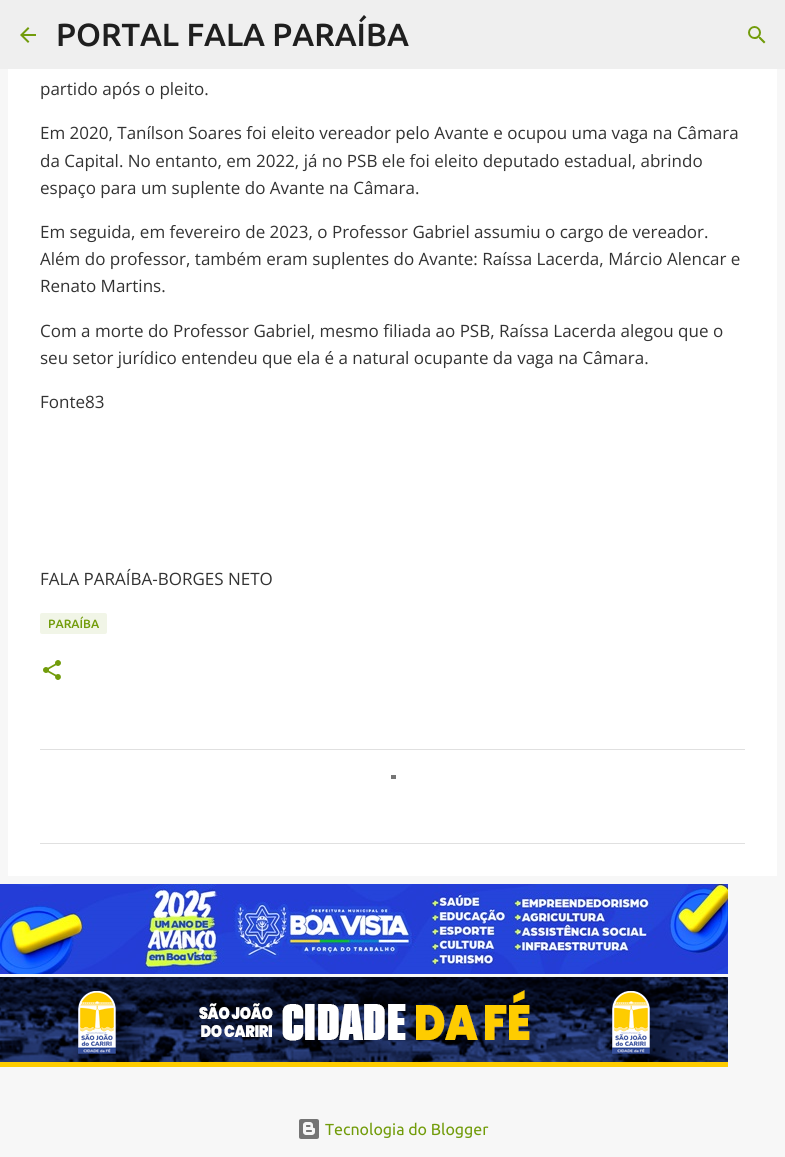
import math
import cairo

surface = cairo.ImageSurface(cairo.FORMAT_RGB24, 785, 1157)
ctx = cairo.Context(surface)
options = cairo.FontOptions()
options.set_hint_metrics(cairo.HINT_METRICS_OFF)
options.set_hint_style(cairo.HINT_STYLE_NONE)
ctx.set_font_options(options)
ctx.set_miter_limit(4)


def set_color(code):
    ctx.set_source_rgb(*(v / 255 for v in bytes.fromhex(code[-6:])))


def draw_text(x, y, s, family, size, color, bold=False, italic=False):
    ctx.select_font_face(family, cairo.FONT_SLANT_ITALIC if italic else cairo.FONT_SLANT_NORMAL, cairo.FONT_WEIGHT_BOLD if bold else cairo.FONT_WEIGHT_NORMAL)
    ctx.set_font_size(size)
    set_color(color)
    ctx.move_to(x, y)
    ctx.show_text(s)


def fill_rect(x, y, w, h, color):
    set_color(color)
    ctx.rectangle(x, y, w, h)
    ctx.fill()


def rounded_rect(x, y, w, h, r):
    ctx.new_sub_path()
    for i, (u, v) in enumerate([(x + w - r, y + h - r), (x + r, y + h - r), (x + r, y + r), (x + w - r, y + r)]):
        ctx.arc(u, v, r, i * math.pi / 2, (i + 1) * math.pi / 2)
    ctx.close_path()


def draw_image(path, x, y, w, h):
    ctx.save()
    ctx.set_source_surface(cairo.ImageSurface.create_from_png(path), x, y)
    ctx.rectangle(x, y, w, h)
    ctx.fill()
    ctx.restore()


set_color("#f7f7f7")
ctx.paint()
fill_rect(0, 0, 785, 69, "#efefef")
draw_image("assets/img1.png", 20, 27, 16, 16)
draw_text(56, 46, "PORTAL FALA PARAÍBA", "Ubuntu Medium", 32, "#1f1f1f")
draw_image("assets/img2.png", 748, 26, 18, 18)
fill_rect(8, 69, 769, 807, "#ffffff")
fill_rect(40, 749, 705, 1, "#e0e0e0")
fill_rect(40, 843, 705, 1, "#e0e0e0")
draw_text(40, 95, "partido após o pleito.", "Open Sans", 17, "#333333")
draw_text(40, 139, "Em 2020, Tanílson Soares foi eleito vereador pelo Avante e ocupou uma vaga na Câmara", "Open Sans", 17, "#333333")
draw_text(40, 167, "da Capital. No entanto, em 2022, já no PSB ele foi eleito deputado estadual, abrindo", "Open Sans", 17, "#333333")
draw_text(40, 194, "espaço para um suplente do Avante na Câmara.", "Open Sans", 17, "#333333")
draw_text(40, 238, "Em seguida, em fevereiro de 2023, o Professor Gabriel assumiu o cargo de vereador.", "Open Sans", 17, "#333333")
draw_text(40, 265, "Além do professor, também eram suplentes do Avante: Raíssa Lacerda, Márcio Alencar e", "Open Sans", 17, "#333333")
draw_text(40, 292, "Renato Martins.", "Open Sans", 17, "#333333")
draw_text(40, 337, "Com a morte do Professor Gabriel, mesmo filiada ao PSB, Raíssa Lacerda alegou que o", "Open Sans", 17, "#333333")
draw_text(40, 364, "seu setor jurídico entendeu que ela é a natural ocupante da vaga na Câmara.", "Open Sans", 17, "#333333")
draw_text(40, 408, "Fonte83", "Open Sans", 17, "#333333")
draw_text(40, 585, "FALA PARAÍBA-BORGES NETO", "Open Sans", 17, "#333333")
set_color("#f1f5e7")
rounded_rect(40, 613, 67, 21, 2)
ctx.fill()
draw_text(48, 628, "PARAÍBA", "Ubuntu Medium", 12, "#729c0b")
draw_image("assets/img3.png", 43, 660, 18, 20)
draw_image("assets/img4.png", 0, 884, 728, 90)
draw_image("assets/img5.png", 0, 977, 728, 90)
draw_image("assets/img6.png", 299, 1119, 20, 20)
draw_text(325, 1135, "Tecnologia do Blogger", "Ubuntu", 16, "#729c0b")
fill_rect(391, 775, 5, 4, "#757575")
surface.write_to_png("output.png")
